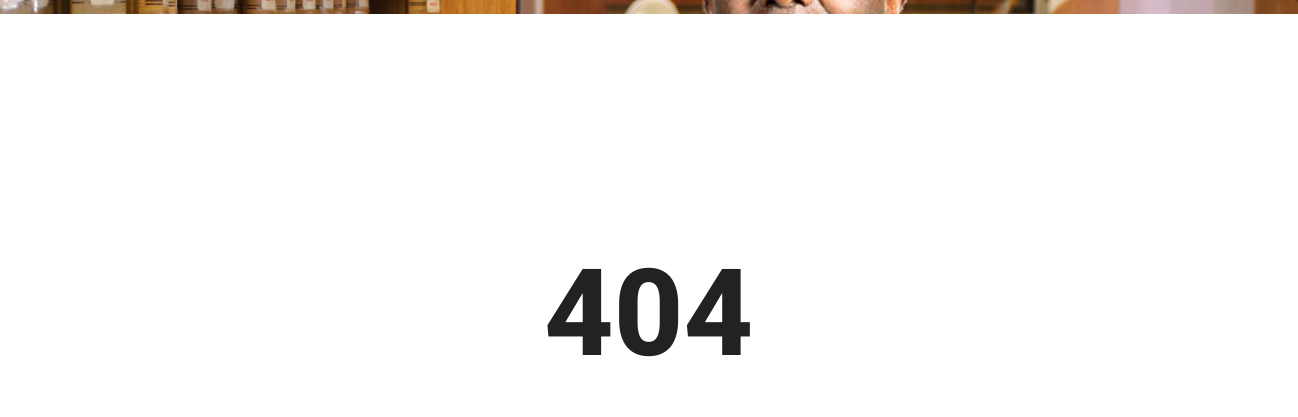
import math
import cairo

surface = cairo.ImageSurface(cairo.FORMAT_RGB24, 1298, 417)
ctx = cairo.Context(surface)
options = cairo.FontOptions()
options.set_hint_metrics(cairo.HINT_METRICS_OFF)
options.set_hint_style(cairo.HINT_STYLE_NONE)
ctx.set_font_options(options)
ctx.set_miter_limit(4)


def set_color(code):
    ctx.set_source_rgb(*(v / 255 for v in bytes.fromhex(code[-6:])))


def draw_text(x, y, s, family, size, color, bold=False, italic=False):
    ctx.select_font_face(family, cairo.FONT_SLANT_ITALIC if italic else cairo.FONT_SLANT_NORMAL, cairo.FONT_WEIGHT_BOLD if bold else cairo.FONT_WEIGHT_NORMAL)
    ctx.set_font_size(size)
    set_color(color)
    ctx.move_to(x, y)
    ctx.show_text(s)


def draw_image(path, x, y, w, h):
    ctx.save()
    ctx.set_source_surface(cairo.ImageSurface.create_from_png(path), x, y)
    ctx.rectangle(x, y, w, h)
    ctx.fill()
    ctx.restore()


set_color("#ffffff")
ctx.paint()
draw_image("assets/img1.png", 0, 0, 1298, 14)
draw_text(544, 355, "404", "Roboto ExtraBold", 121, "#222222")
surface.write_to_png("output.png")
